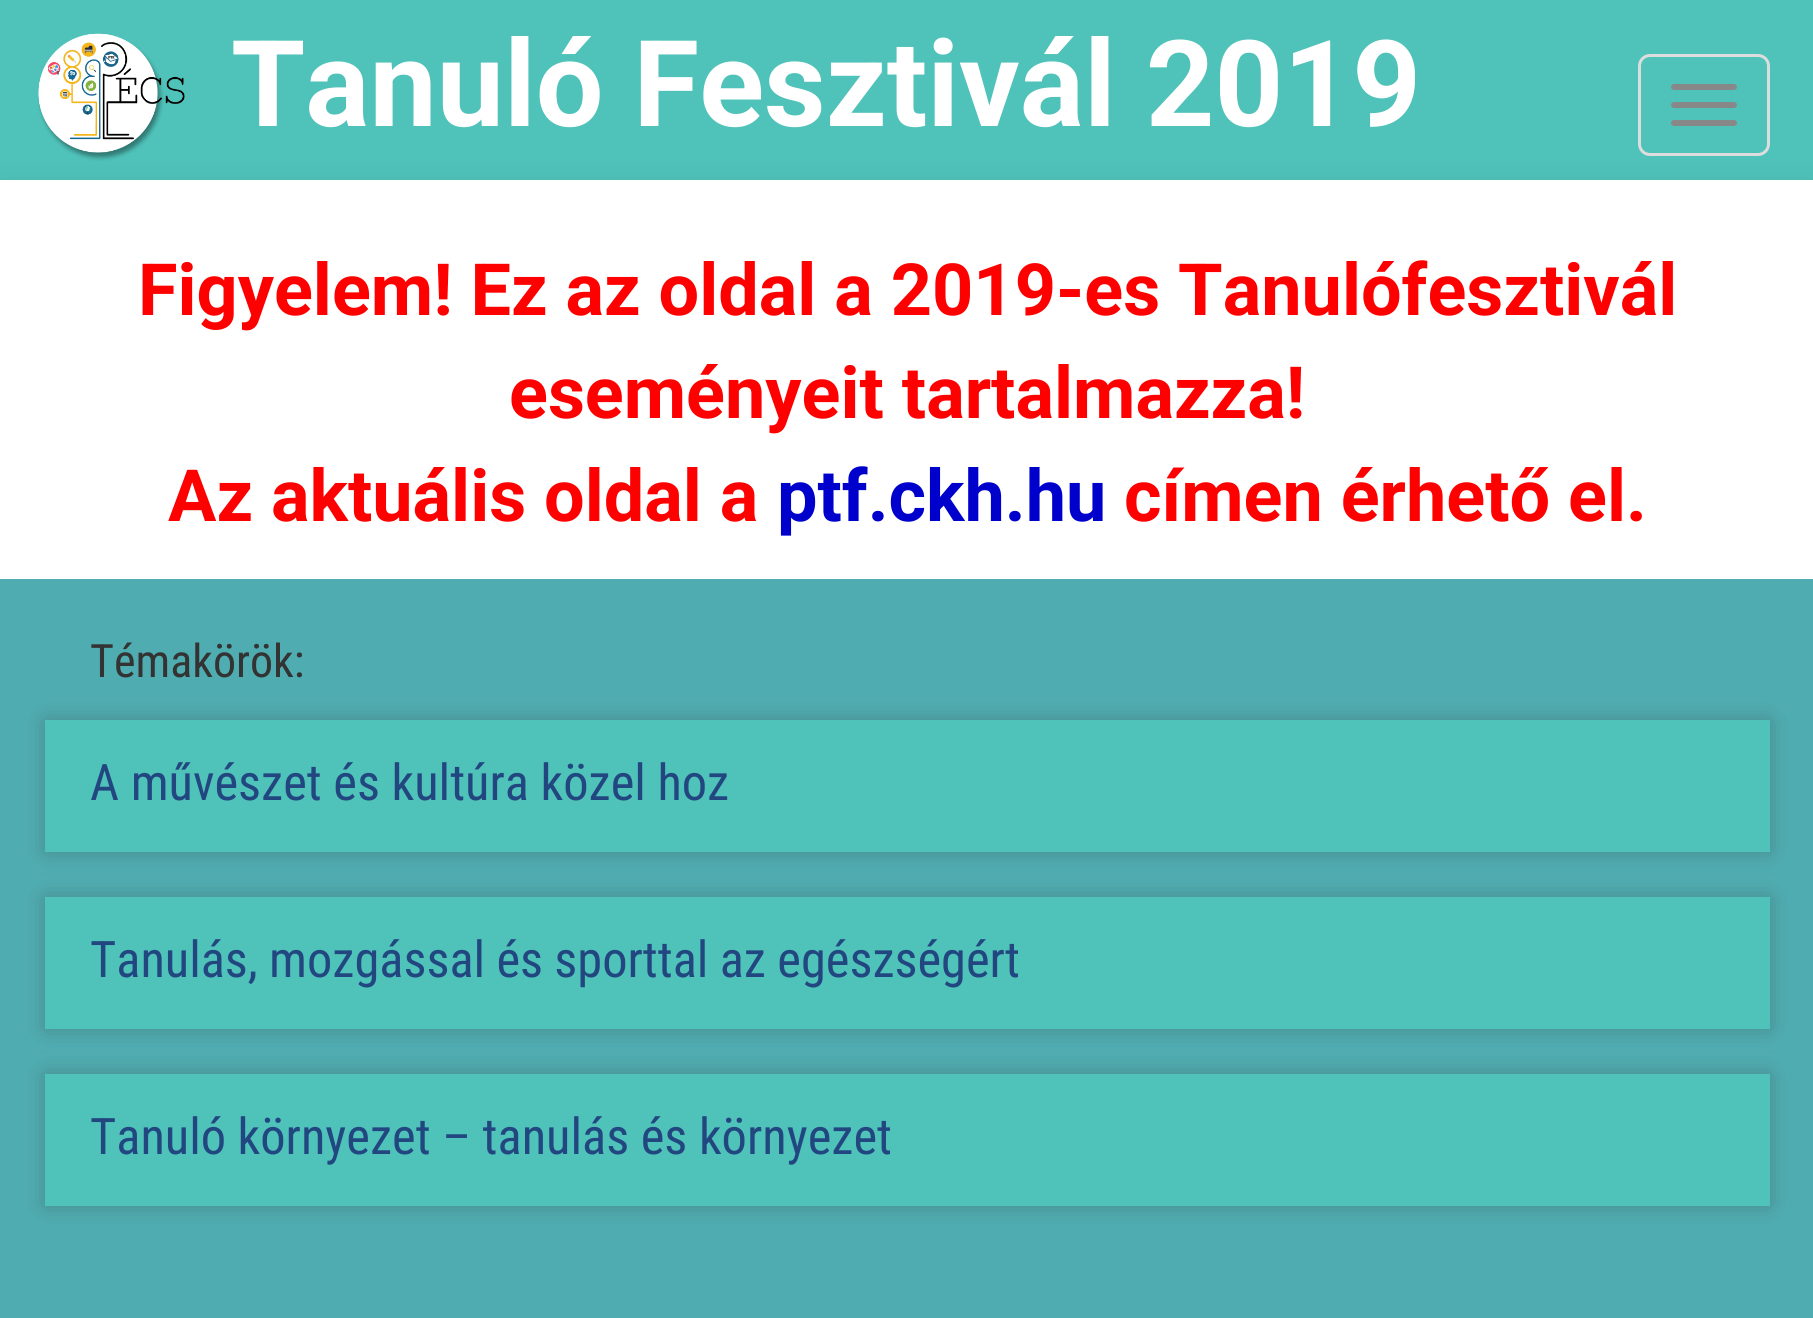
import math
import cairo

surface = cairo.ImageSurface(cairo.FORMAT_RGB24, 1813, 1318)
ctx = cairo.Context(surface)
options = cairo.FontOptions()
options.set_hint_metrics(cairo.HINT_METRICS_OFF)
options.set_hint_style(cairo.HINT_STYLE_NONE)
ctx.set_font_options(options)
ctx.set_miter_limit(4)


def set_color(code):
    ctx.set_source_rgb(*(v / 255 for v in bytes.fromhex(code[-6:])))


def draw_text(x, y, s, family, size, color, bold=False, italic=False):
    ctx.select_font_face(family, cairo.FONT_SLANT_ITALIC if italic else cairo.FONT_SLANT_NORMAL, cairo.FONT_WEIGHT_BOLD if bold else cairo.FONT_WEIGHT_NORMAL)
    ctx.set_font_size(size)
    set_color(color)
    ctx.move_to(x, y)
    ctx.show_text(s)


def draw_spaced(x, y, s, letter, word):
    ctx.move_to(x, y)
    for ch in s:
        ctx.show_text(ch)
        ctx.rel_move_to(letter + word * (ch == ' '), 0)


def fill_rect(x, y, w, h, color):
    set_color(color)
    ctx.rectangle(x, y, w, h)
    ctx.fill()


def rounded_rect(x, y, w, h, r):
    ctx.new_sub_path()
    for i, (u, v) in enumerate([(x + w - r, y + h - r), (x + r, y + h - r), (x + r, y + r), (x + w - r, y + r)]):
        ctx.arc(u, v, r, i * math.pi / 2, (i + 1) * math.pi / 2)
    ctx.close_path()


def draw_shadow(x, y, w, h, r, blur, alpha):
    ctx.push_group_with_content(cairo.CONTENT_ALPHA)
    ctx.set_operator(cairo.OPERATOR_SOURCE)
    for i in range(15, -16, -2):
        e = blur * i / 6
        if min(w, h) + 2 * e > 0:
            ctx.set_source_rgba(0, 0, 0, alpha * math.erfc((i - 1) / 8.5) / 2)
            rounded_rect(x - e, y - e, w + 2 * e, h + 2 * e, max(0, min(r + e + blur * .6, min(w, h) / 2 + e)))
            ctx.fill()
    ctx.mask(ctx.pop_group())


def draw_image(path, x, y, w, h):
    ctx.save()
    ctx.set_source_surface(cairo.ImageSurface.create_from_png(path), x, y)
    ctx.rectangle(x, y, w, h)
    ctx.fill()
    ctx.restore()


set_color("#4fc2b9")
ctx.paint()
set_color("#000000")
draw_shadow(0, 198, 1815, 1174, 0, 18, 0.18)
draw_image("assets/img1.png", 38, 33, 147, 128)
draw_text(231, 126, "Tanuló Fesztivál 2019", "Roboto", 120, "#ffffff", bold=True)
rounded_rect(1639.5, 55.5, 129, 99, 10.5)
set_color("#dddddd")
ctx.set_line_width(3)
ctx.stroke()
set_color("#888888")
rounded_rect(1671, 84, 66, 6, 3)
ctx.fill()
rounded_rect(1671, 102, 66, 6, 3)
ctx.fill()
rounded_rect(1671, 120, 66, 6, 3)
ctx.fill()
fill_rect(0, 180, 1813, 399, "#ffffff")
draw_text(138, 315, "Figyelem! Ez az oldal a 2019-es Tanulófesztivál", "Roboto", 72, "#ff0000", bold=True)
draw_text(509, 418, "eseményeit tartalmazza!", "Roboto", 72, "#ff0000", bold=True)
draw_text(168, 521, "Az aktuális oldal a", "Roboto", 72, "#ff0000", bold=True)
draw_text(777, 521, "ptf.ckh.hu", "Roboto", 72, "#0000cd", bold=True)
draw_text(1124, 521, "címen érhető el.", "Roboto", 72, "#ff0000", bold=True)
fill_rect(0, 579, 1813, 739, "#4fadb2")
draw_text(90, 677, "Témakörök:", "Roboto Condensed", 46, "#333333")
set_color("#323232")
draw_shadow(45, 720, 1725, 132, 0, 12, 0.29)
fill_rect(45, 720, 1725, 132, "#4fc2b9")
draw_text(90, 800, "A művészet és kultúra közel hoz", "Roboto Condensed", 50.4, "#22467f")
set_color("#323232")
draw_shadow(45, 897, 1725, 132, 0, 12, 0.29)
fill_rect(45, 897, 1725, 132, "#4fc2b9")
set_color("#22467f")
draw_spaced(90, 977, "Tanulás, mozgással és sporttal az egészségért", 0, -0.25)
set_color("#323232")
draw_shadow(45, 1074, 1725, 132, 0, 12, 0.29)
fill_rect(45, 1074, 1725, 132, "#4fc2b9")
draw_text(90, 1154, "Tanuló környezet – tanulás és környezet", "Roboto Condensed", 50.4, "#22467f")
surface.write_to_png("output.png")
